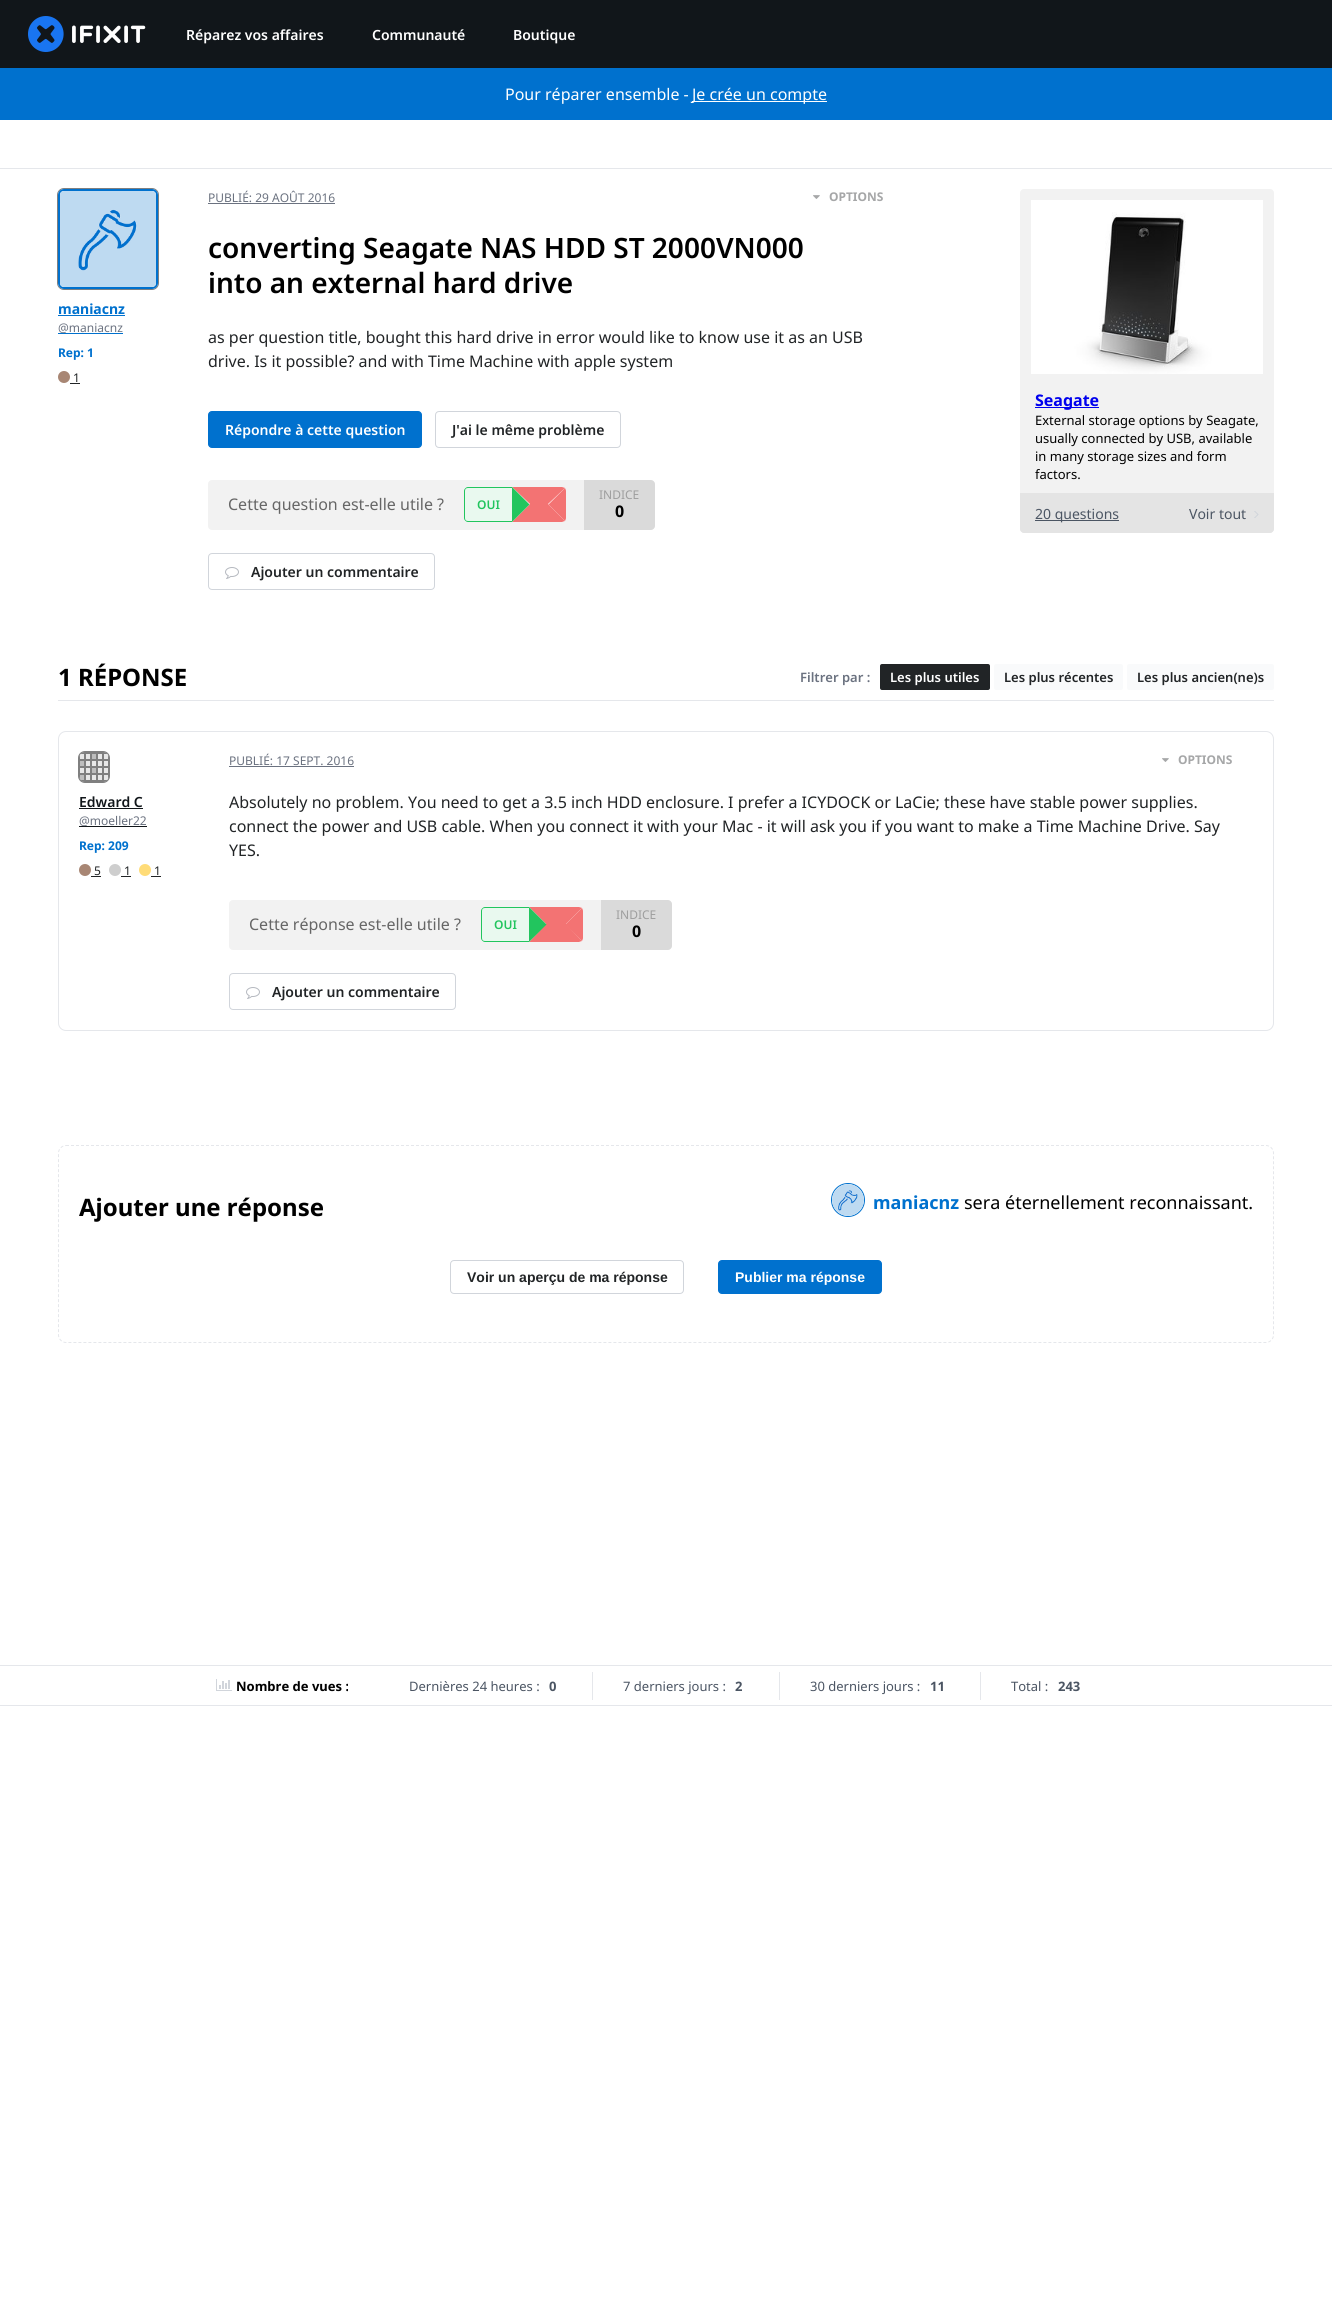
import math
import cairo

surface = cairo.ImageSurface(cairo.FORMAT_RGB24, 1332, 2297)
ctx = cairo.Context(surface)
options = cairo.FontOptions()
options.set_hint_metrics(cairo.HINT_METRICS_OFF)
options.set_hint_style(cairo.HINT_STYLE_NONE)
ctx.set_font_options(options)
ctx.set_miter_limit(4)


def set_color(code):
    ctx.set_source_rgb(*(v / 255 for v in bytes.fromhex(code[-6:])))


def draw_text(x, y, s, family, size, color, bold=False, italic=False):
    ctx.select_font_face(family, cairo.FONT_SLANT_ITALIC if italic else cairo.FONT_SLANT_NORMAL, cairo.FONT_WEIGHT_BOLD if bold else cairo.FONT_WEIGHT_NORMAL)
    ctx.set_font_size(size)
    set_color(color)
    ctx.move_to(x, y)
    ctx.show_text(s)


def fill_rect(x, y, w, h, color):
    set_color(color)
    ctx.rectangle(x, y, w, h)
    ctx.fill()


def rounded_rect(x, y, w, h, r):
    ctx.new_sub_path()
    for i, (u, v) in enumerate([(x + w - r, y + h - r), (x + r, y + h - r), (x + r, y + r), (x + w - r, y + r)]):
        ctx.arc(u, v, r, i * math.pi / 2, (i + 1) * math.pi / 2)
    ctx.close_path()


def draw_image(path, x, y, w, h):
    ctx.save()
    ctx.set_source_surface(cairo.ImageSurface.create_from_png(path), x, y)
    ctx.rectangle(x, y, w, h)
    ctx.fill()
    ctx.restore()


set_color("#ffffff")
ctx.paint()
fill_rect(0, 0, 1332, 68, "#11161a")
draw_image("assets/img1.png", 28, 16, 118, 36)
draw_text(186, 40, "Réparez vos affaires", "Noto Sans SemiBold", 14, "#ffffff")
draw_text(372, 40, "Communauté", "Noto Sans SemiBold", 14, "#ffffff")
draw_text(513, 40, "Boutique", "Noto Sans SemiBold", 14, "#ffffff")
fill_rect(0, 68, 1332, 52, "#0071ce")
draw_text(505, 100, "Pour réparer ensemble -", "Noto Sans", 16, "#ffffff")
fill_rect(692, 101, 135, 1, "#ffffff")
draw_text(692, 100, "Je crée un compte", "Noto Sans", 16, "#ffffff")
fill_rect(0, 168, 1332, 1, "#e5e7eb")
rounded_rect(57.5, 188.5, 101, 101, 6.5)
set_color("#808080")
ctx.set_line_width(1)
ctx.stroke()
rounded_rect(59, 190, 98, 98, 5)
set_color("#0071ce")
ctx.set_line_width(2)
ctx.stroke()
draw_image("assets/img2.png", 60, 191, 96, 96)
draw_text(58, 314, "maniacnz", "Noto Sans", 14, "#0071ce", bold=True)
fill_rect(58, 315, 67, 1, "#0071ce")
fill_rect(58, 333, 65, 1, "#0071ce")
draw_text(58, 332, "@maniacnz", "Noto Sans", 12, "#6b7280")
draw_text(58, 357, "Rep: 1", "Noto Sans", 12, "#0071ce", bold=True)
set_color("#a88674")
ctx.new_path()
ctx.arc(64, 377, 6, 0, 2 * math.pi)
ctx.fill()
draw_text(73, 382, "1", "Noto Sans", 12, "#212426")
fill_rect(70, 383, 10, 1, "#212426")
draw_text(208, 202, "PUBLIÉ: 29 AOÛT 2016", "Noto Sans", 12, "#6b7280")
fill_rect(208, 203, 127, 1, "#6b7280")
draw_image("assets/img3.png", 813, 195, 7, 4)
draw_text(829, 201, "OPTIONS", "Noto Sans", 12, "#a6a7a8", bold=True)
draw_text(208, 258, "converting Seagate NAS HDD ST 2000VN000", "Noto Sans SemiBold", 28, "#000000")
draw_text(208, 293, "into an external hard drive", "Noto Sans SemiBold", 28, "#000000")
draw_text(208, 343, "as per question title, bought this hard drive in error would like to know use it as an USB", "Noto Sans", 16, "#212426")
draw_text(208, 367, "drive. Is it possible? and with Time Machine with apple system", "Noto Sans", 16, "#212426")
set_color("#0071ce")
rounded_rect(208.5, 411.5, 213, 36, 3.5)
ctx.fill_preserve()
ctx.set_line_width(1)
ctx.stroke()
draw_text(225, 435, "Répondre à cette question", "Noto Sans SemiBold", 14, "#ffffff")
rounded_rect(435.5, 411.5, 185, 36, 3.5)
set_color("#d1d5db")
ctx.stroke()
draw_text(452, 435, "J'ai le même problème", "Noto Sans SemiBold", 14, "#212426")
set_color("#f2f2f2")
rounded_rect(208, 480, 447, 50, 4)
ctx.fill()
draw_text(228, 510, "Cette question est-elle utile ?", "Noto Sans", 16, "#666666")
set_color("#e9f9ef")
ctx.new_path()
ctx.move_to(468, 487)
ctx.line_to(512, 487)
ctx.line_to(512, 522)
ctx.line_to(468, 522)
ctx.curve_to(466, 522, 464, 520, 464, 518)
ctx.line_to(464, 491)
ctx.curve_to(464, 489, 466, 487, 468, 487)
ctx.close_path()
ctx.fill()
set_color("#22c55e")
ctx.set_fill_rule(cairo.FILL_RULE_EVEN_ODD)
ctx.new_path()
ctx.move_to(468, 487)
ctx.line_to(512, 487)
ctx.line_to(512, 522)
ctx.line_to(468, 522)
ctx.curve_to(466, 522, 464, 520, 464, 518)
ctx.line_to(464, 491)
ctx.curve_to(464, 489, 466, 487, 468, 487)
ctx.close_path()
ctx.move_to(468, 488)
ctx.line_to(512, 488)
ctx.line_to(512, 521)
ctx.line_to(468, 521)
ctx.curve_to(466, 521, 465, 520, 465, 518)
ctx.line_to(465, 491)
ctx.curve_to(465, 489, 466, 488, 468, 488)
ctx.close_path()
ctx.fill()
draw_text(477, 509, "OUI", "Noto Sans SemiBold", 12, "#22c55e")
set_color("#ffffff")
ctx.new_path()
ctx.move_to(512, 487)
ctx.line_to(562, 487)
ctx.curve_to(564, 487, 566, 489, 566, 491)
ctx.line_to(566, 518)
ctx.curve_to(566, 520, 564, 522, 562, 522)
ctx.line_to(512, 522)
ctx.close_path()
ctx.fill()
set_color("#f37373")
ctx.set_fill_rule(cairo.FILL_RULE_WINDING)
ctx.new_path()
ctx.move_to(512, 487)
ctx.line_to(562, 487)
ctx.line_to(565, 488)
ctx.line_to(548, 504)
ctx.line_to(530, 504)
ctx.close_path()
ctx.fill()
ctx.new_path()
ctx.move_to(565, 488)
ctx.line_to(548.5, 504.5)
ctx.line_to(565, 521)
ctx.curve_to(565.5, 520, 566, 519, 566, 518)
ctx.line_to(566, 491)
ctx.curve_to(566, 490, 565.5, 489, 565, 488)
ctx.close_path()
ctx.fill()
ctx.new_path()
ctx.move_to(562, 522)
ctx.line_to(512, 522)
ctx.line_to(530, 504)
ctx.line_to(548, 504)
ctx.line_to(565, 521)
ctx.close_path()
ctx.fill()
set_color("#22c55e")
ctx.new_path()
ctx.move_to(512, 487)
ctx.line_to(529.5, 504.5)
ctx.line_to(512, 522)
ctx.close_path()
ctx.fill()
ctx.set_source_rgba(0, 0, 0, 0.1)
ctx.new_path()
ctx.move_to(584, 480)
ctx.line_to(651, 480)
ctx.curve_to(653, 480, 655, 482, 655, 484)
ctx.line_to(655, 526)
ctx.curve_to(655, 528, 653, 530, 651, 530)
ctx.line_to(584, 530)
ctx.close_path()
ctx.fill()
draw_text(599, 499, "INDICE", "Noto Sans", 12, "#9e9e9e")
draw_text(615, 517, "0", "Noto Sans", 16, "#000000", bold=True)
rounded_rect(208.5, 553.5, 226, 36, 3.5)
set_color("#d1d5db")
ctx.stroke()
draw_image("assets/img4.png", 225, 567, 14, 12)
draw_text(251, 577, "Ajouter un commentaire", "Noto Sans SemiBold", 14, "#212426")
set_color("#f2f2f2")
rounded_rect(1020, 189, 254, 344, 4)
ctx.fill()
draw_image("assets/img5.png", 1031, 200, 232, 174)
fill_rect(1035, 407, 64, 1, "#0000ee")
draw_text(1035, 406, "Seagate", "Noto Sans", 16, "#0000ee", bold=True)
draw_text(1035, 425, "External storage options by Seagate,", "Noto Sans", 13, "#000000")
draw_text(1035, 443, "usually connected by USB, available", "Noto Sans", 13, "#000000")
draw_text(1035, 461, "in many storage sizes and form", "Noto Sans", 13, "#000000")
draw_text(1035, 479, "factors.", "Noto Sans", 13, "#000000")
set_color("#e4e4e4")
ctx.new_path()
ctx.move_to(1020, 493)
ctx.line_to(1274, 493)
ctx.line_to(1274, 529)
ctx.curve_to(1274, 531, 1272, 533, 1270, 533)
ctx.line_to(1024, 533)
ctx.curve_to(1022, 533, 1020, 531, 1020, 529)
ctx.close_path()
ctx.fill()
fill_rect(1035, 520, 84, 1, "#4b5563")
draw_text(1035, 519, "20 questions", "Noto Sans", 14, "#4b5563")
draw_text(1189, 519, "Voir tout", "Noto Sans", 14, "#4b5563")
draw_image("assets/img6.png", 1254, 511, 5, 7)
fill_rect(58, 700, 1216, 1, "#e5e7eb")
draw_text(58, 686, "1 RÉPONSE", "Noto Sans", 24, "#000000", bold=True)
draw_text(800, 682, "Filtrer par :", "Noto Sans SemiBold", 13, "#6b7280")
set_color("#212426")
rounded_rect(880, 664, 110, 26, 2)
ctx.fill()
draw_text(890, 682, "Les plus utiles", "Noto Sans SemiBold", 13, "#ffffff")
set_color("#f9fafb")
rounded_rect(994, 664, 129, 26, 2)
ctx.fill()
draw_text(1004, 682, "Les plus récentes", "Noto Sans SemiBold", 13, "#212426")
set_color("#f9fafb")
rounded_rect(1127, 664, 147, 26, 2)
ctx.fill()
draw_text(1137, 682, "Les plus ancien(ne)s", "Noto Sans SemiBold", 13, "#212426")
rounded_rect(58.5, 731.5, 1215, 299, 7.5)
set_color("#e5e7eb")
ctx.stroke()
rounded_rect(78.5, 751.5, 31, 31, 6.5)
set_color("#808080")
ctx.stroke()
ctx.set_source_rgba(0, 0, 0, 0.5)
rounded_rect(79, 752, 30, 30, 6)
ctx.fill()
draw_image("assets/img7.png", 80, 754, 28, 26)
draw_text(79, 807, "Edward C", "Noto Sans SemiBold", 14, "#11161a")
fill_rect(79, 808, 64, 1, "#11161a")
fill_rect(79, 826, 68, 1, "#11161a")
draw_text(79, 825, "@moeller22", "Noto Sans", 12, "#6b7280")
draw_text(79, 850, "Rep: 209", "Noto Sans", 12, "#0071ce", bold=True)
set_color("#a88674")
ctx.new_path()
ctx.arc(85, 870, 6, 0, 2 * math.pi)
ctx.fill()
draw_text(94, 875, "5", "Noto Sans", 12, "#212426")
fill_rect(91, 876, 10, 1, "#212426")
set_color("#cecece")
ctx.new_path()
ctx.arc(115, 870, 6, 0, 2 * math.pi)
ctx.fill()
draw_text(124, 875, "1", "Noto Sans", 12, "#212426")
fill_rect(121, 876, 10, 1, "#212426")
set_color("#ffdc78")
ctx.new_path()
ctx.arc(145, 870, 6, 0, 2 * math.pi)
ctx.fill()
draw_text(154, 875, "1", "Noto Sans", 12, "#212426")
fill_rect(151, 876, 10, 1, "#212426")
draw_text(229, 765, "PUBLIÉ: 17 SEPT. 2016", "Noto Sans", 12, "#6b7280")
fill_rect(229, 766, 125, 1, "#6b7280")
draw_image("assets/img3.png", 1162, 758, 7, 4)
draw_text(1178, 764, "OPTIONS", "Noto Sans", 12, "#a6a7a8", bold=True)
draw_text(229, 808, "Absolutely no problem. You need to get a 3.5 inch HDD enclosure. I prefer a ICYDOCK or LaCie; these have stable power supplies.", "Noto Sans", 16, "#212426")
draw_text(229, 832, "connect the power and USB cable. When you connect it with your Mac - it will ask you if you want to make a Time Machine Drive. Say", "Noto Sans", 16, "#212426")
draw_text(229, 856, "YES.", "Noto Sans", 16, "#212426")
set_color("#f2f2f2")
rounded_rect(229, 900, 443, 50, 4)
ctx.fill()
draw_text(249, 930, "Cette réponse est-elle utile ?", "Noto Sans", 16, "#666666")
set_color("#e9f9ef")
ctx.new_path()
ctx.move_to(485, 907)
ctx.line_to(529, 907)
ctx.line_to(529, 942)
ctx.line_to(485, 942)
ctx.curve_to(483, 942, 481, 940, 481, 938)
ctx.line_to(481, 911)
ctx.curve_to(481, 909, 483, 907, 485, 907)
ctx.close_path()
ctx.fill()
set_color("#22c55e")
ctx.set_fill_rule(cairo.FILL_RULE_EVEN_ODD)
ctx.new_path()
ctx.move_to(485, 907)
ctx.line_to(529, 907)
ctx.line_to(529, 942)
ctx.line_to(485, 942)
ctx.curve_to(483, 942, 481, 940, 481, 938)
ctx.line_to(481, 911)
ctx.curve_to(481, 909, 483, 907, 485, 907)
ctx.close_path()
ctx.move_to(485, 908)
ctx.line_to(529, 908)
ctx.line_to(529, 941)
ctx.line_to(485, 941)
ctx.curve_to(483, 941, 482, 940, 482, 938)
ctx.line_to(482, 911)
ctx.curve_to(482, 909, 483, 908, 485, 908)
ctx.close_path()
ctx.fill()
draw_text(494, 929, "OUI", "Noto Sans SemiBold", 12, "#22c55e")
set_color("#ffffff")
ctx.new_path()
ctx.move_to(529, 907)
ctx.line_to(579, 907)
ctx.curve_to(581, 907, 583, 909, 583, 911)
ctx.line_to(583, 938)
ctx.curve_to(583, 940, 581, 942, 579, 942)
ctx.line_to(529, 942)
ctx.close_path()
ctx.fill()
set_color("#f37373")
ctx.set_fill_rule(cairo.FILL_RULE_WINDING)
ctx.new_path()
ctx.move_to(529, 907)
ctx.line_to(579, 907)
ctx.line_to(582, 908)
ctx.line_to(566, 924)
ctx.line_to(546, 924)
ctx.close_path()
ctx.fill()
ctx.new_path()
ctx.move_to(582, 908)
ctx.line_to(565.5, 924.5)
ctx.line_to(582, 941)
ctx.curve_to(582.5, 940, 583, 939, 583, 938)
ctx.line_to(583, 911)
ctx.curve_to(583, 910, 582.5, 909, 582, 908)
ctx.close_path()
ctx.fill()
ctx.new_path()
ctx.move_to(579, 942)
ctx.line_to(529, 942)
ctx.line_to(546, 924)
ctx.line_to(566, 924)
ctx.line_to(582, 941)
ctx.close_path()
ctx.fill()
set_color("#22c55e")
ctx.new_path()
ctx.move_to(529, 907)
ctx.line_to(546.5, 924.5)
ctx.line_to(529, 942)
ctx.close_path()
ctx.fill()
ctx.set_source_rgba(0, 0, 0, 0.1)
ctx.new_path()
ctx.move_to(601, 900)
ctx.line_to(668, 900)
ctx.curve_to(670, 900, 672, 902, 672, 904)
ctx.line_to(672, 946)
ctx.curve_to(672, 948, 670, 950, 668, 950)
ctx.line_to(601, 950)
ctx.close_path()
ctx.fill()
draw_text(616, 919, "INDICE", "Noto Sans", 12, "#9e9e9e")
draw_text(632, 937, "0", "Noto Sans", 16, "#000000", bold=True)
rounded_rect(229.5, 973.5, 226, 36, 3.5)
set_color("#d1d5db")
ctx.stroke()
draw_image("assets/img4.png", 246, 987, 14, 12)
draw_text(272, 997, "Ajouter un commentaire", "Noto Sans SemiBold", 14, "#212426")
ctx.new_path()
ctx.move_to(66, 1145.5)
ctx.line_to(1266, 1145.5)
ctx.curve_to(1270, 1145.5, 1273.5, 1149, 1273.5, 1153)
ctx.line_to(1273.5, 1335)
ctx.curve_to(1273.5, 1339, 1270, 1342.5, 1266, 1342.5)
ctx.line_to(66, 1342.5)
ctx.curve_to(62, 1342.5, 58.5, 1339, 58.5, 1335)
ctx.line_to(58.5, 1153)
ctx.curve_to(58.5, 1149, 62, 1145.5, 66, 1145.5)
ctx.close_path()
set_color("#e5e7eb")
ctx.set_dash([3, 2])
ctx.stroke()
draw_text(79, 1216, "Ajouter une réponse", "Noto Sans", 24, "#000000", bold=True)
ctx.new_path()
ctx.arc(848, 1200, 16.5, 0, 2 * math.pi)
set_color("#0071ce")
ctx.set_dash([])
ctx.stroke()
draw_image("assets/img8.png", 832, 1184, 32, 32)
draw_text(873, 1209, "maniacnz", "Noto Sans", 18, "#0071ce", bold=True)
draw_text(964, 1209, "sera éternellement reconnaissant.", "Noto Sans", 18, "#000000")
rounded_rect(450.5, 1260.5, 233, 33, 3.5)
set_color("#d1d5db")
ctx.stroke()
draw_text(467, 1282, "Voir un aperçu de ma réponse", "Liberation Sans", 14, "#212426", bold=True)
set_color("#0071ce")
rounded_rect(718.5, 1260.5, 163, 33, 3.5)
ctx.fill_preserve()
ctx.stroke()
draw_text(735, 1282, "Publier ma réponse", "Liberation Sans", 14, "#ffffff", bold=True)
fill_rect(0, 1665, 1332, 1, "#e5e7eb")
fill_rect(0, 1705, 1332, 1, "#e5e7eb")
draw_image("assets/img9.png", 216, 1679, 16, 12)
draw_text(236, 1691, "Nombre de vues :", "Noto Sans", 13, "#000000", bold=True)
fill_rect(592, 1672, 1, 28, "#e5e7eb")
draw_text(409, 1691, "Dernières 24 heures :", "Noto Sans", 13, "#4b5563")
draw_text(549, 1691, "0", "Noto Sans", 13, "#4b5563", bold=True)
fill_rect(779, 1672, 1, 28, "#e5e7eb")
draw_text(623, 1691, "7 derniers jours :", "Noto Sans", 13, "#4b5563")
draw_text(735, 1691, "2", "Noto Sans", 13, "#4b5563", bold=True)
fill_rect(980, 1672, 1, 28, "#e5e7eb")
draw_text(810, 1691, "30 derniers jours :", "Noto Sans", 13, "#4b5563")
draw_text(930, 1691, "11", "Noto Sans", 13, "#4b5563", bold=True)
draw_text(1011, 1691, "Total :", "Noto Sans", 13, "#4b5563")
draw_text(1058, 1691, "243", "Noto Sans", 13, "#4b5563", bold=True)
surface.write_to_png("output.png")
